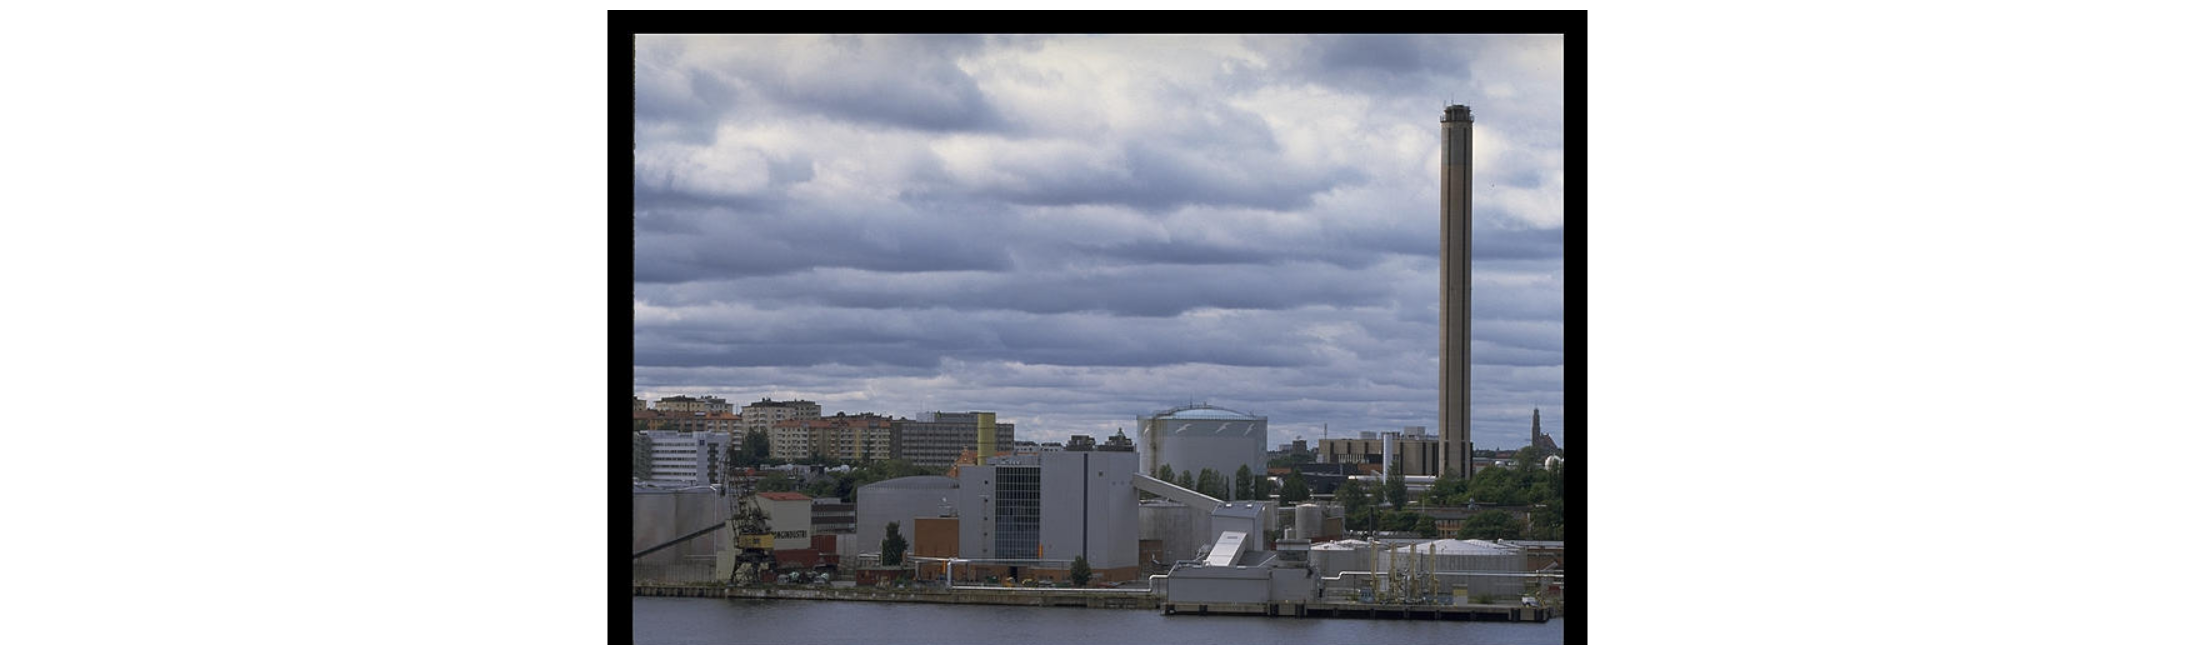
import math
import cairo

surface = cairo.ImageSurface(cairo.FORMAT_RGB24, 2195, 645)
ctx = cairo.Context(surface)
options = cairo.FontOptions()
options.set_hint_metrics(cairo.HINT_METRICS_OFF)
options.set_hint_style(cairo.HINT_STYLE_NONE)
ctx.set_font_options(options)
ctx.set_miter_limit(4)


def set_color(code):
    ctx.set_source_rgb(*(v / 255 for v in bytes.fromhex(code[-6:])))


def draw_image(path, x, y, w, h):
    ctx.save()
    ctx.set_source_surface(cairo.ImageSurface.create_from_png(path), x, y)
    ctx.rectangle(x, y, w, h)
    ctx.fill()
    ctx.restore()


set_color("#ffffff")
ctx.paint()
draw_image("assets/img1.png", 607, 10, 981, 635)
surface.write_to_png("output.png")
